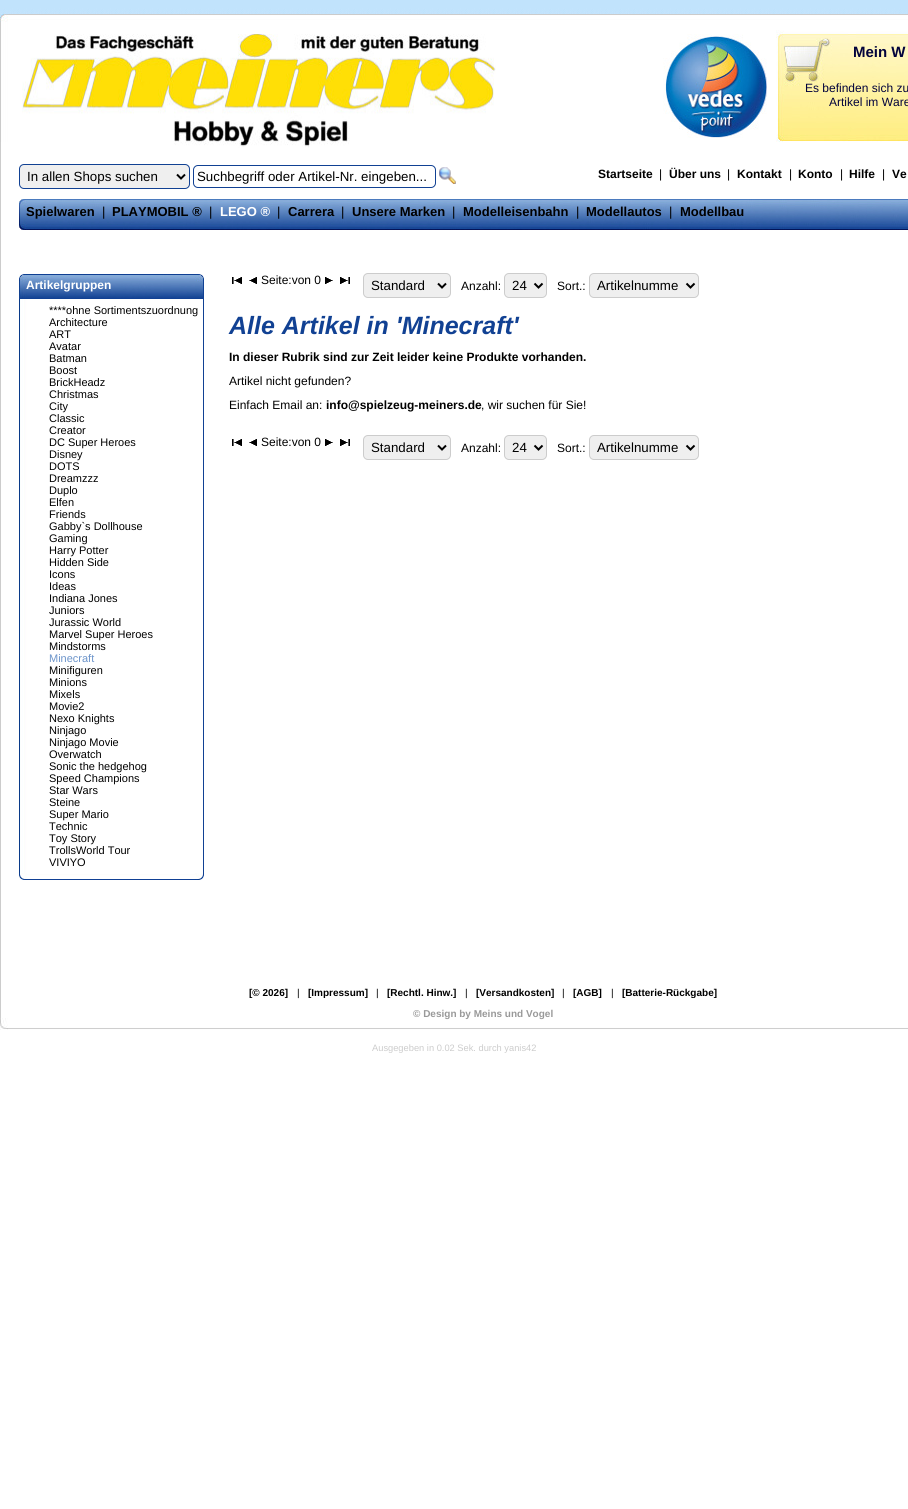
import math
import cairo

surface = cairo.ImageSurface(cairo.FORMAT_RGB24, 908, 1509)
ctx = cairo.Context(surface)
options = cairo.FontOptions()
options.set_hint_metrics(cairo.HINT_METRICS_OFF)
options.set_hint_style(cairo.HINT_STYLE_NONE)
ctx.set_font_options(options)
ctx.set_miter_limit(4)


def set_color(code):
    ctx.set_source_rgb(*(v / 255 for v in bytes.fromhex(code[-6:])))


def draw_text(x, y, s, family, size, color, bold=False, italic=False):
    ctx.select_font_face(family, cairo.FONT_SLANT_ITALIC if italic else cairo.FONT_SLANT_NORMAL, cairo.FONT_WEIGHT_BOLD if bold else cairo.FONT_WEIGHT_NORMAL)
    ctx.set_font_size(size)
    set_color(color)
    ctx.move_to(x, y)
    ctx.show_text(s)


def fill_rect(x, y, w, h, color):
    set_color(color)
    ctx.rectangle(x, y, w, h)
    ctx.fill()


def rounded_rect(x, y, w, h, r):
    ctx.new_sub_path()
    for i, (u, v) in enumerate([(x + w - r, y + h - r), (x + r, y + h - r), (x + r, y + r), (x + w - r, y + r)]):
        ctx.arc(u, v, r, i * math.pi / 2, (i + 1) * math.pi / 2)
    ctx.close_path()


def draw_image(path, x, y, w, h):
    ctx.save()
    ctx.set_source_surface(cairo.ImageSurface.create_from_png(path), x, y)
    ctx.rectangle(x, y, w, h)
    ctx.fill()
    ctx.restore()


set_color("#ffffff")
ctx.paint()
draw_image("assets/img1.png", 0, 0, 908, 14)
fill_rect(0, 142, 1, 876, "#cccccc")
draw_image("assets/img2.png", 0, 14, 908, 128)
draw_image("assets/img3.png", 22, 34, 474, 114)
draw_image("assets/img4.png", 663, 34, 104, 104)
draw_text(853, 57, "Mein W", "Liberation Sans", 15, "#02033c", bold=True)
draw_text(805, 92, "Es befinden sich zu", "Liberation Sans", 12, "#02033c")
draw_text(829, 106, "Artikel im Ware", "Liberation Sans", 12, "#02033c")
set_color("#efefef")
rounded_rect(19.5, 164.5, 170, 24, 4.5)
ctx.fill_preserve()
set_color("#114193")
ctx.set_line_width(1)
ctx.stroke()
ctx.new_path()
ctx.move_to(177, 174.5)
ctx.line_to(181, 178.5)
ctx.line_to(185, 174.5)
set_color("#000000")
ctx.set_line_width(2)
ctx.stroke()
draw_text(27, 181, "In allen Shops suchen", "Liberation Sans", 13.3, "#000000")
rounded_rect(193.5, 165.5, 242, 22, 4.5)
set_color("#114193")
ctx.set_line_width(1)
ctx.stroke()
draw_text(197, 181, "Suchbegriff oder Artikel-Nr. eingeben...", "Liberation Sans", 13.3, "#000000")
draw_image("assets/img5.png", 439, 167, 17, 17)
draw_text(598, 178, "Startseite", "Liberation Sans", 12, "#000000", bold=True)
draw_text(659, 178, "|", "Liberation Sans", 12, "#000000")
draw_text(669, 178, "Über uns", "Liberation Sans", 12, "#000000", bold=True)
draw_text(727, 178, "|", "Liberation Sans", 12, "#000000")
draw_text(737, 178, "Kontakt", "Liberation Sans", 12, "#000000", bold=True)
draw_text(789, 178, "|", "Liberation Sans", 12, "#000000")
draw_text(798, 178, "Konto", "Liberation Sans", 12, "#000000", bold=True)
draw_text(840, 178, "|", "Liberation Sans", 12, "#000000")
draw_text(849, 178, "Hilfe", "Liberation Sans", 12, "#000000", bold=True)
draw_text(882, 178, "|", "Liberation Sans", 12, "#000000")
draw_text(892, 178, "Ve", "Liberation Sans", 12, "#000000", bold=True)
draw_image("assets/img6.png", 19, 199, 889, 31)
draw_text(26, 216, "Spielwaren", "Liberation Sans", 13, "#000000", bold=True)
draw_text(102, 216, "|", "Liberation Sans", 13, "#000000")
draw_text(112, 216, "PLAYMOBIL ®", "Liberation Sans", 13, "#000000", bold=True)
draw_text(209, 216, "|", "Liberation Sans", 13, "#000000")
draw_text(220, 216, "LEGO ®", "Liberation Sans", 13, "#ffffff", bold=True)
draw_text(277, 216, "|", "Liberation Sans", 13, "#000000")
draw_text(288, 216, "Carrera", "Liberation Sans", 13, "#000000", bold=True)
draw_text(341, 216, "|", "Liberation Sans", 13, "#000000")
draw_text(352, 216, "Unsere Marken", "Liberation Sans", 13, "#000000", bold=True)
draw_text(452, 216, "|", "Liberation Sans", 13, "#000000")
draw_text(463, 216, "Modelleisenbahn", "Liberation Sans", 13, "#000000", bold=True)
draw_text(576, 216, "|", "Liberation Sans", 13, "#000000")
draw_text(586, 216, "Modellautos", "Liberation Sans", 13, "#000000", bold=True)
draw_text(669, 216, "|", "Liberation Sans", 13, "#000000")
draw_text(680, 216, "Modellbau", "Liberation Sans", 13, "#000000", bold=True)
draw_image("assets/img7.png", 19, 274, 185, 25)
draw_text(26, 289, "Artikelgruppen", "Liberation Sans", 12, "#ffffff", bold=True)
draw_image("assets/img8.png", 19, 299, 185, 574)
draw_text(49, 314, "****ohne Sortimentszuordnung", "Liberation Sans", 11, "#000000")
draw_text(49, 326, "Architecture", "Liberation Sans", 11, "#000000")
draw_text(49, 338, "ART", "Liberation Sans", 11, "#000000")
draw_text(49, 350, "Avatar", "Liberation Sans", 11, "#000000")
draw_text(49, 362, "Batman", "Liberation Sans", 11, "#000000")
draw_text(49, 374, "Boost", "Liberation Sans", 11, "#000000")
draw_text(49, 386, "BrickHeadz", "Liberation Sans", 11, "#000000")
draw_text(49, 398, "Christmas", "Liberation Sans", 11, "#000000")
draw_text(49, 410, "City", "Liberation Sans", 11, "#000000")
draw_text(49, 422, "Classic", "Liberation Sans", 11, "#000000")
draw_text(49, 434, "Creator", "Liberation Sans", 11, "#000000")
draw_text(49, 446, "DC Super Heroes", "Liberation Sans", 11, "#000000")
draw_text(49, 458, "Disney", "Liberation Sans", 11, "#000000")
draw_text(49, 470, "DOTS", "Liberation Sans", 11, "#000000")
draw_text(49, 482, "Dreamzzz", "Liberation Sans", 11, "#000000")
draw_text(49, 494, "Duplo", "Liberation Sans", 11, "#000000")
draw_text(49, 506, "Elfen", "Liberation Sans", 11, "#000000")
draw_text(49, 518, "Friends", "Liberation Sans", 11, "#000000")
draw_text(49, 530, "Gabby`s Dollhouse", "Liberation Sans", 11, "#000000")
draw_text(49, 542, "Gaming", "Liberation Sans", 11, "#000000")
draw_text(49, 554, "Harry Potter", "Liberation Sans", 11, "#000000")
draw_text(49, 566, "Hidden Side", "Liberation Sans", 11, "#000000")
draw_text(49, 578, "Icons", "Liberation Sans", 11, "#000000")
draw_text(49, 590, "Ideas", "Liberation Sans", 11, "#000000")
draw_text(49, 602, "Indiana Jones", "Liberation Sans", 11, "#000000")
draw_text(49, 614, "Juniors", "Liberation Sans", 11, "#000000")
draw_text(49, 626, "Jurassic World", "Liberation Sans", 11, "#000000")
draw_text(49, 638, "Marvel Super Heroes", "Liberation Sans", 11, "#000000")
draw_text(49, 650, "Mindstorms", "Liberation Sans", 11, "#000000")
draw_text(49, 662, "Minecraft", "Liberation Sans", 11, "#6c94ca")
draw_text(49, 674, "Minifiguren", "Liberation Sans", 11, "#000000")
draw_text(49, 686, "Minions", "Liberation Sans", 11, "#000000")
draw_text(49, 698, "Mixels", "Liberation Sans", 11, "#000000")
draw_text(49, 710, "Movie2", "Liberation Sans", 11, "#000000")
draw_text(49, 722, "Nexo Knights", "Liberation Sans", 11, "#000000")
draw_text(49, 734, "Ninjago", "Liberation Sans", 11, "#000000")
draw_text(49, 746, "Ninjago Movie", "Liberation Sans", 11, "#000000")
draw_text(49, 758, "Overwatch", "Liberation Sans", 11, "#000000")
draw_text(49, 770, "Sonic the hedgehog", "Liberation Sans", 11, "#000000")
draw_text(49, 782, "Speed Champions", "Liberation Sans", 11, "#000000")
draw_text(49, 794, "Star Wars", "Liberation Sans", 11, "#000000")
draw_text(49, 806, "Steine", "Liberation Sans", 11, "#000000")
draw_text(49, 818, "Super Mario", "Liberation Sans", 11, "#000000")
draw_text(49, 830, "Technic", "Liberation Sans", 11, "#000000")
draw_text(49, 842, "Toy Story", "Liberation Sans", 11, "#000000")
draw_text(49, 854, "TrollsWorld Tour", "Liberation Sans", 11, "#000000")
draw_text(49, 866, "VIVIYO", "Liberation Sans", 11, "#000000")
draw_image("assets/img9.png", 19, 873, 185, 7)
draw_image("assets/img10.png", 232, 277, 10, 7)
draw_image("assets/img11.png", 249, 277, 8, 7)
draw_text(261, 284, "Seite:von 0", "Liberation Sans", 12, "#000000")
draw_image("assets/img12.png", 325, 277, 8, 7)
draw_image("assets/img13.png", 340, 277, 10, 7)
set_color("#efefef")
rounded_rect(363.5, 273.5, 87, 24, 4.5)
ctx.fill_preserve()
set_color("#cccccc")
ctx.stroke()
ctx.new_path()
ctx.move_to(438, 283.5)
ctx.line_to(442, 287.5)
ctx.line_to(446, 283.5)
set_color("#000000")
ctx.set_line_width(2)
ctx.stroke()
draw_text(371, 290, "Standard", "Liberation Sans", 13.3, "#000000")
draw_text(461, 290, "Anzahl:", "Liberation Sans", 12, "#000000")
set_color("#efefef")
rounded_rect(504.5, 273.5, 42, 24, 4.5)
ctx.fill_preserve()
set_color("#cccccc")
ctx.set_line_width(1)
ctx.stroke()
ctx.new_path()
ctx.move_to(534.5, 283.5)
ctx.line_to(538.5, 287.5)
ctx.line_to(542.5, 283.5)
set_color("#000000")
ctx.set_line_width(2)
ctx.stroke()
draw_text(512, 290, "24", "Liberation Sans", 13.3, "#000000")
draw_text(557, 290, "Sort.:", "Liberation Sans", 12, "#000000")
set_color("#efefef")
rounded_rect(589.5, 273.5, 109, 24, 4.5)
ctx.fill_preserve()
set_color("#cccccc")
ctx.set_line_width(1)
ctx.stroke()
ctx.new_path()
ctx.move_to(686.5, 283.5)
ctx.line_to(690.5, 287.5)
ctx.line_to(694.5, 283.5)
set_color("#000000")
ctx.set_line_width(2)
ctx.stroke()
draw_text(597, 290, "Artikelnumme", "Liberation Sans", 13.3, "#000000")
draw_text(229, 334, "Alle Artikel in 'Minecraft'", "Liberation Sans", 25, "#114193", bold=True, italic=True)
draw_text(229, 361, "In dieser Rubrik sind zur Zeit leider keine Produkte vorhanden.", "Liberation Sans", 12, "#000000", bold=True)
draw_text(229, 385, "Artikel nicht gefunden?", "Liberation Sans", 12, "#000000")
draw_text(229, 409, "Einfach Email an:", "Liberation Sans", 12, "#000000")
draw_text(326, 409, "info@spielzeug-meiners.de", "Liberation Sans", 12, "#000000", bold=True)
draw_text(481, 409, ", wir suchen für Sie!", "Liberation Sans", 12, "#000000")
draw_image("assets/img10.png", 232, 439, 10, 7)
draw_image("assets/img11.png", 249, 439, 8, 7)
draw_text(261, 446, "Seite:von 0", "Liberation Sans", 12, "#000000")
draw_image("assets/img12.png", 325, 439, 8, 7)
draw_image("assets/img13.png", 340, 439, 10, 7)
set_color("#efefef")
rounded_rect(363.5, 435.5, 87, 24, 4.5)
ctx.fill_preserve()
set_color("#cccccc")
ctx.set_line_width(1)
ctx.stroke()
ctx.new_path()
ctx.move_to(438, 445.5)
ctx.line_to(442, 449.5)
ctx.line_to(446, 445.5)
set_color("#000000")
ctx.set_line_width(2)
ctx.stroke()
draw_text(371, 452, "Standard", "Liberation Sans", 13.3, "#000000")
draw_text(461, 452, "Anzahl:", "Liberation Sans", 12, "#000000")
set_color("#efefef")
rounded_rect(504.5, 435.5, 42, 24, 4.5)
ctx.fill_preserve()
set_color("#cccccc")
ctx.set_line_width(1)
ctx.stroke()
ctx.new_path()
ctx.move_to(534.5, 445.5)
ctx.line_to(538.5, 449.5)
ctx.line_to(542.5, 445.5)
set_color("#000000")
ctx.set_line_width(2)
ctx.stroke()
draw_text(512, 452, "24", "Liberation Sans", 13.3, "#000000")
draw_text(557, 452, "Sort.:", "Liberation Sans", 12, "#000000")
set_color("#efefef")
rounded_rect(589.5, 435.5, 109, 24, 4.5)
ctx.fill_preserve()
set_color("#cccccc")
ctx.set_line_width(1)
ctx.stroke()
ctx.new_path()
ctx.move_to(686.5, 445.5)
ctx.line_to(690.5, 449.5)
ctx.line_to(694.5, 445.5)
set_color("#000000")
ctx.set_line_width(2)
ctx.stroke()
draw_text(597, 452, "Artikelnumme", "Liberation Sans", 13.3, "#000000")
draw_image("assets/img14.png", 0, 1018, 908, 12)
ctx.save()
ctx.rectangle(20, 987, 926, 11)
ctx.clip()
draw_text(249, 996, "[© 2026]", "Liberation Sans", 10, "#000000", bold=True)
ctx.restore()
draw_text(297, 996, "|", "Liberation Sans", 10, "#000000")
ctx.save()
ctx.rectangle(20, 987, 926, 11)
ctx.clip()
draw_text(308, 996, "[Impressum]", "Liberation Sans", 10, "#000000", bold=True)
ctx.restore()
draw_text(376, 996, "|", "Liberation Sans", 10, "#000000")
ctx.save()
ctx.rectangle(20, 987, 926, 11)
ctx.clip()
draw_text(387, 996, "[Rechtl. Hinw.]", "Liberation Sans", 10, "#000000", bold=True)
ctx.restore()
draw_text(465, 996, "|", "Liberation Sans", 10, "#000000")
ctx.save()
ctx.rectangle(20, 987, 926, 11)
ctx.clip()
draw_text(476, 996, "[Versandkosten]", "Liberation Sans", 10, "#000000", bold=True)
ctx.restore()
draw_text(562, 996, "|", "Liberation Sans", 10, "#000000")
ctx.save()
ctx.rectangle(20, 987, 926, 11)
ctx.clip()
draw_text(573, 996, "[AGB]", "Liberation Sans", 10, "#000000", bold=True)
ctx.restore()
draw_text(611, 996, "|", "Liberation Sans", 10, "#000000")
ctx.save()
ctx.rectangle(20, 987, 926, 11)
ctx.clip()
draw_text(622, 996, "[Batterie-Rückgabe]", "Liberation Sans", 10, "#000000", bold=True)
ctx.restore()
draw_text(413, 1017, "© Design by Meins und Vogel", "Liberation Sans", 10, "#999999", bold=True)
draw_text(372, 1051, "Ausgegeben in 0.02 Sek. durch yanis42", "Liberation Sans", 9.3, "#cccccc")
surface.write_to_png("output.png")
